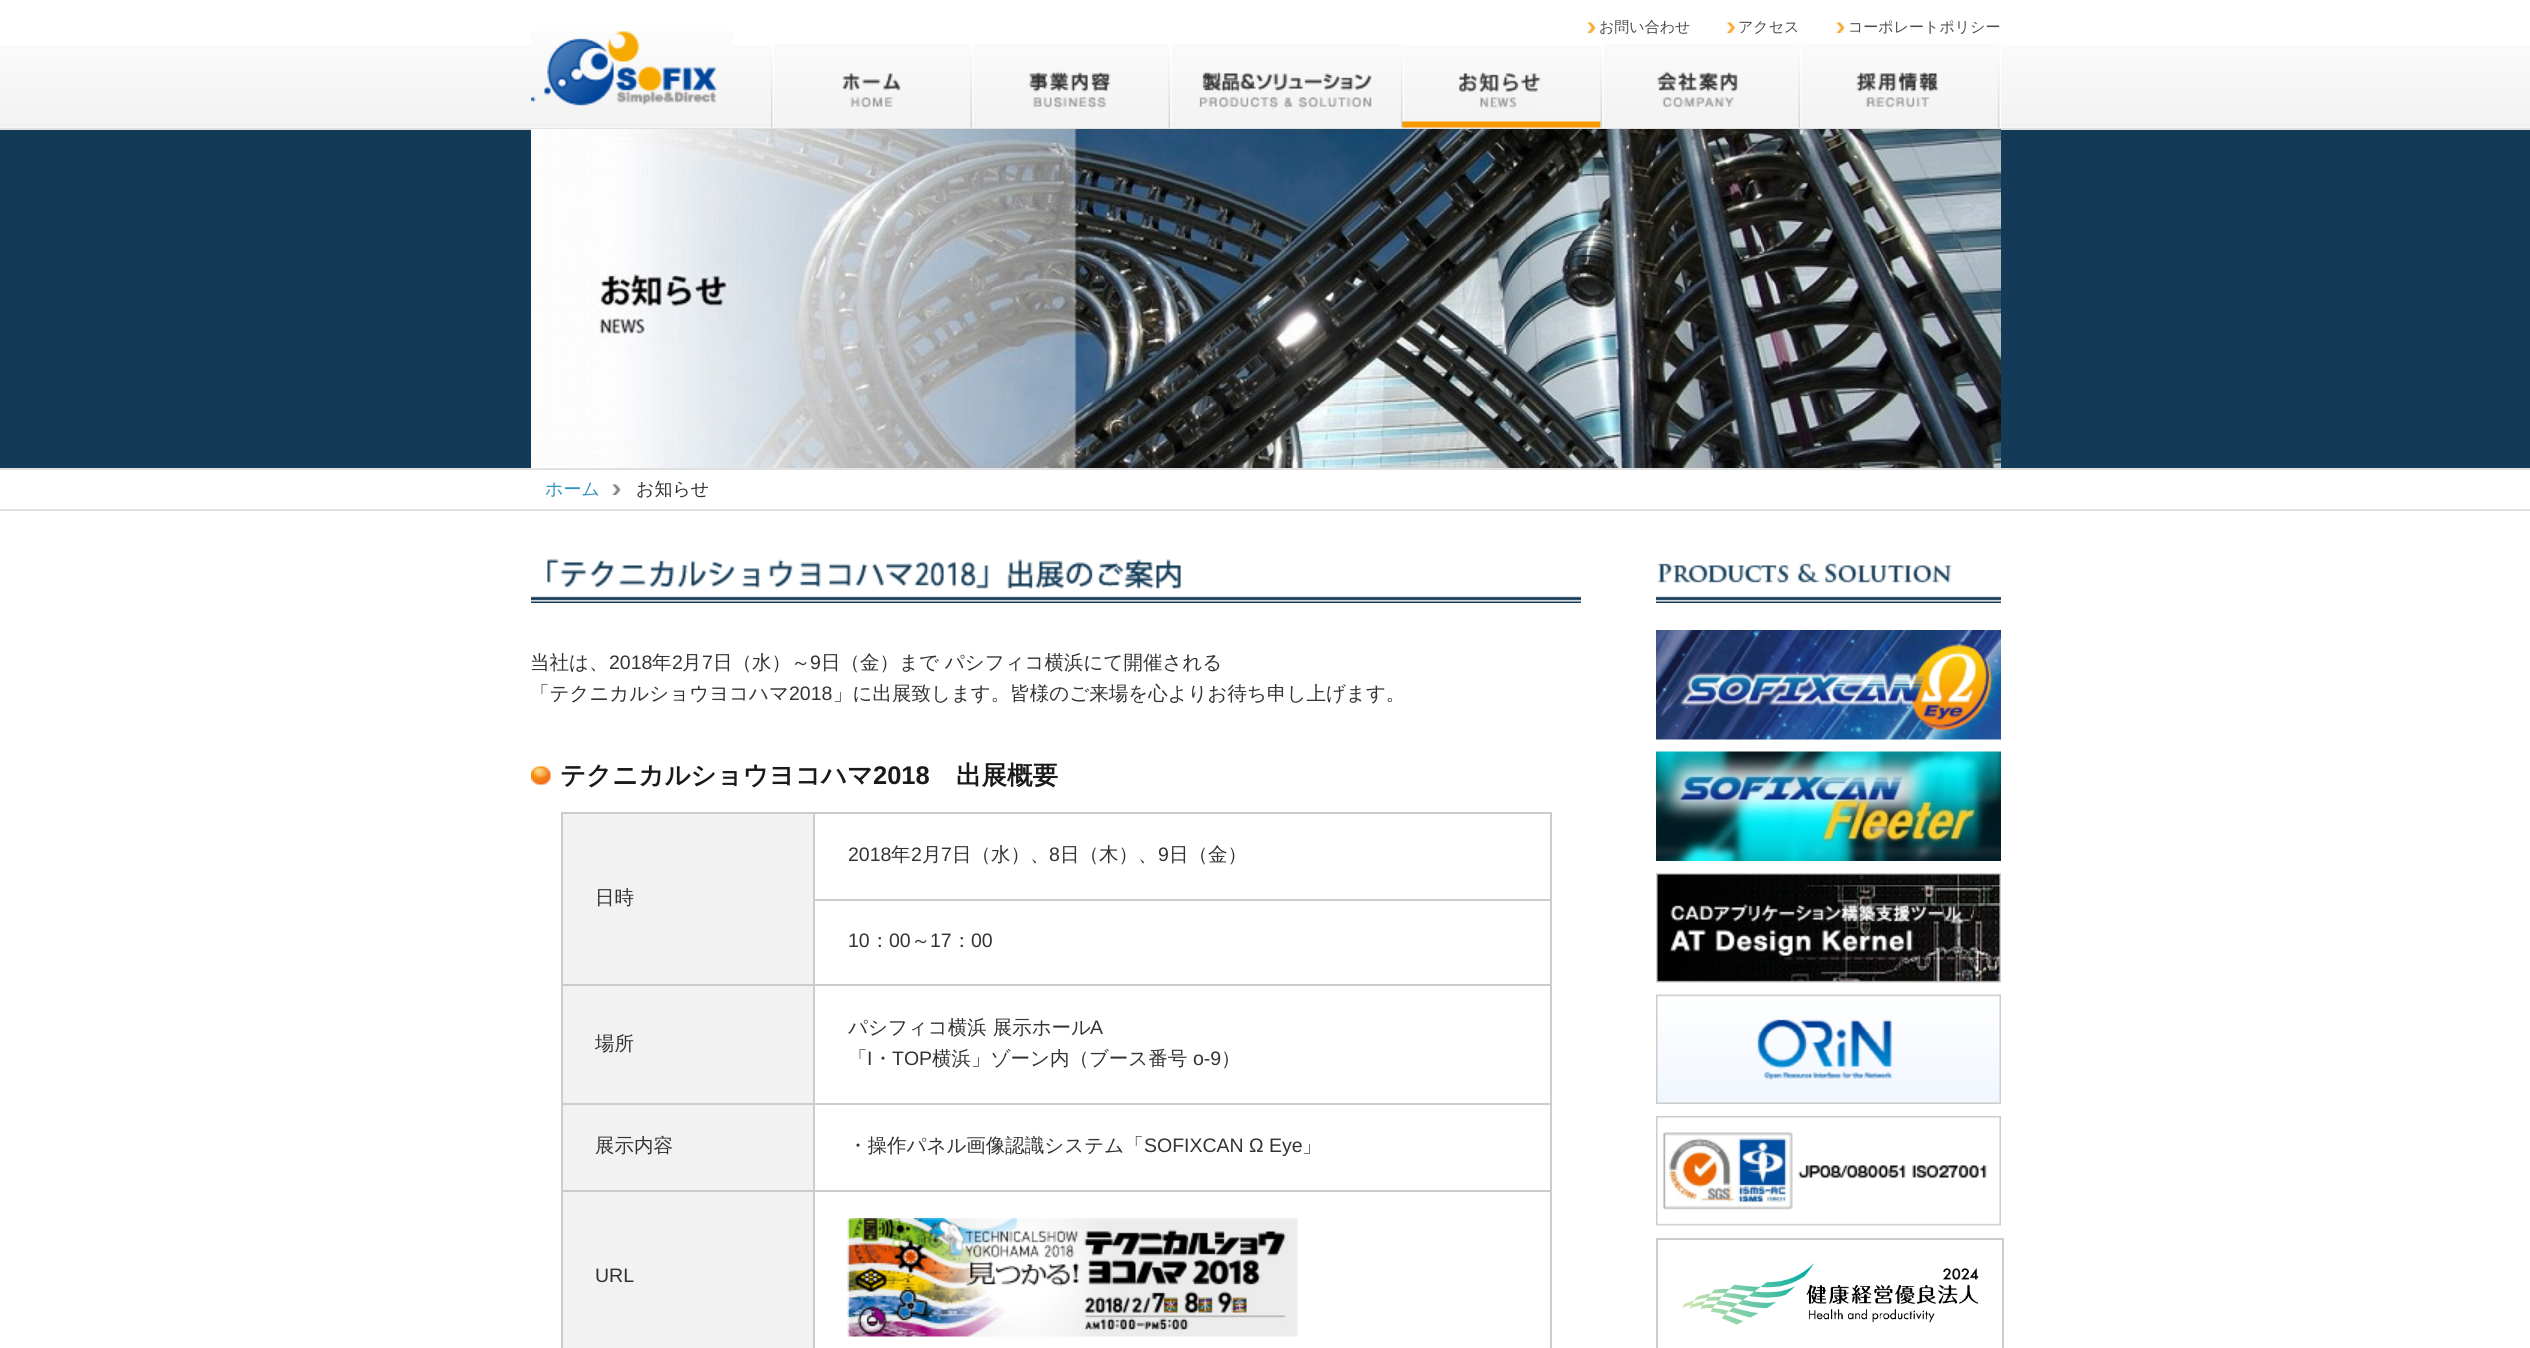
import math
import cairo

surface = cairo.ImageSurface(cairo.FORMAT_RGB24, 2530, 1348)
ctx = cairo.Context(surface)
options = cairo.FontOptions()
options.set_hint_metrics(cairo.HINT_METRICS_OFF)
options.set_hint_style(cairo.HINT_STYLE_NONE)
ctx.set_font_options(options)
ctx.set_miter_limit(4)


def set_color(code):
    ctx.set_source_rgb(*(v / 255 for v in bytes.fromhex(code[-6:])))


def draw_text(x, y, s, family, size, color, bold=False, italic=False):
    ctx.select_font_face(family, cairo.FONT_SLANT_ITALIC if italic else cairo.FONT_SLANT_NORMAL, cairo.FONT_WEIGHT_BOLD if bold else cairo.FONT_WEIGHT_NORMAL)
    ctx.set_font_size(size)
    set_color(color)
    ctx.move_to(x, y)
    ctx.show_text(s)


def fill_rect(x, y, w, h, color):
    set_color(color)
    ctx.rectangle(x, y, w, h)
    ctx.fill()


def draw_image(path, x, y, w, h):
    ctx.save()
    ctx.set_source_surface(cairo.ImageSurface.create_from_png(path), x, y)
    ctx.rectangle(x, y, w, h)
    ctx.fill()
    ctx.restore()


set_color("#ffffff")
ctx.paint()
draw_image("assets/img1.png", 0, 45, 2530, 83)
draw_image("assets/img2.png", 1587, 22, 9, 11)
draw_text(1599, 32, "お問い合わせ", "WenQuanYi Zen Hei Medium", 15, "#4d4d4d")
draw_image("assets/img3.png", 1726, 22, 10, 11)
draw_text(1738, 32, "アクセス", "WenQuanYi Zen Hei Medium", 15, "#4d4d4d")
draw_image("assets/img4.png", 1836, 22, 9, 11)
draw_text(1848, 32, "コーポレートポリシー", "WenQuanYi Zen Hei Medium", 15, "#4d4d4d")
draw_image("assets/img5.png", 771, 44, 199, 84)
draw_image("assets/img6.png", 970, 44, 198, 84)
draw_image("assets/img7.png", 1168, 44, 233, 84)
draw_image("assets/img8.png", 1401, 54, 200, 74)
draw_image("assets/img9.png", 1600, 44, 198, 84)
draw_image("assets/img10.png", 1798, 44, 203, 84)
draw_image("assets/img11.png", 531, 31, 202, 75)
fill_rect(0, 130, 2530, 338, "#133b57")
fill_rect(0, 128, 2530, 2, "#e1e1e1")
fill_rect(0, 468, 2530, 2, "#e1e1e1")
draw_image("assets/img12.png", 531, 129, 1470, 339)
fill_rect(0, 509, 2530, 2, "#e1e1e1")
draw_text(545, 495, "ホーム", "WenQuanYi Zen Hei Medium", 18, "#3094c1")
draw_image("assets/img13.png", 612, 484, 9, 11)
draw_text(636, 495, "お知らせ", "WenQuanYi Zen Hei Medium", 18, "#333333")
draw_image("assets/img14.png", 531, 559, 1050, 44)
draw_text(530, 669, "当社は、", "WenQuanYi Zen Hei Medium", 19.5, "#333333")
draw_text(609, 669, "2018", "Liberation Sans", 19.5, "#333333")
draw_text(652, 669, "年", "WenQuanYi Zen Hei Medium", 19.5, "#333333")
draw_text(672, 669, "2", "Liberation Sans", 19.5, "#333333")
draw_text(682, 669, "月", "WenQuanYi Zen Hei Medium", 19.5, "#333333")
draw_text(702, 669, "7", "Liberation Sans", 19.5, "#333333")
draw_text(713, 669, "日（水）～", "WenQuanYi Zen Hei Medium", 19.5, "#333333")
draw_text(810, 669, "9", "Liberation Sans", 19.5, "#333333")
draw_text(821, 669, "日（金）まで パシフィコ横浜にて開催される", "WenQuanYi Zen Hei Medium", 19.5, "#333333")
draw_text(530, 700, "「テクニカルショウヨコハマ", "WenQuanYi Zen Hei Medium", 19.5, "#333333")
draw_text(789, 700, "2018", "Liberation Sans", 19.5, "#333333")
draw_text(833, 700, "」に出展致します。皆様のご来場を心よりお待ち申し上げます。", "WenQuanYi Zen Hei Medium", 19.5, "#333333")
draw_image("assets/img15.png", 531, 766, 20, 19)
draw_text(560, 784, "テクニカルショウヨコハマ", "WenQuanYi Zen Hei", 25.5, "#1a1a1a", bold=True)
draw_text(873, 784, "2018", "Liberation Sans", 25.5, "#1a1a1a", bold=True)
draw_text(956, 784, "出展概要", "WenQuanYi Zen Hei", 25.5, "#1a1a1a", bold=True)
fill_rect(561, 812, 990, 2, "#cccccc")
fill_rect(561, 812, 2, 536, "#cccccc")
fill_rect(1550, 812, 2, 536, "#cccccc")
fill_rect(813, 899, 738, 2, "#cccccc")
draw_text(848, 861, "2018", "Liberation Sans", 19.5, "#333333")
draw_text(891, 861, "年", "WenQuanYi Zen Hei Medium", 19.5, "#333333")
draw_text(911, 861, "2", "Liberation Sans", 19.5, "#333333")
draw_text(922, 861, "月", "WenQuanYi Zen Hei Medium", 19.5, "#333333")
draw_text(941, 861, "7", "Liberation Sans", 19.5, "#333333")
draw_text(952, 861, "日（水）、", "WenQuanYi Zen Hei Medium", 19.5, "#333333")
draw_text(1049, 861, "8", "Liberation Sans", 19.5, "#333333")
draw_text(1060, 861, "日（木）、", "WenQuanYi Zen Hei Medium", 19.5, "#333333")
draw_text(1158, 861, "9", "Liberation Sans", 19.5, "#333333")
draw_text(1169, 861, "日（金）", "WenQuanYi Zen Hei Medium", 19.5, "#333333")
fill_rect(563, 814, 250, 170, "#f2f2f2")
fill_rect(813, 1190, 2, 158, "#cccccc")
fill_rect(813, 1190, 738, 2, "#cccccc")
fill_rect(813, 1103, 2, 88, "#cccccc")
fill_rect(813, 1103, 738, 2, "#cccccc")
fill_rect(813, 984, 2, 120, "#cccccc")
fill_rect(813, 984, 738, 2, "#cccccc")
fill_rect(813, 812, 2, 174, "#cccccc")
fill_rect(561, 984, 254, 2, "#cccccc")
draw_text(595, 904, "日時", "WenQuanYi Zen Hei Medium", 19.5, "#333333")
draw_text(848, 947, "10", "Liberation Sans", 19.5, "#333333")
draw_text(870, 947, "：", "WenQuanYi Zen Hei Medium", 19.5, "#333333")
draw_text(889, 947, "00", "Liberation Sans", 19.5, "#333333")
draw_text(911, 947, "～", "WenQuanYi Zen Hei Medium", 19.5, "#333333")
draw_text(930, 947, "17", "Liberation Sans", 19.5, "#333333")
draw_text(952, 947, "：", "WenQuanYi Zen Hei Medium", 19.5, "#333333")
draw_text(971, 947, "00", "Liberation Sans", 19.5, "#333333")
fill_rect(563, 986, 250, 117, "#f2f2f2")
fill_rect(561, 1103, 254, 2, "#cccccc")
draw_text(595, 1050, "場所", "WenQuanYi Zen Hei Medium", 19.5, "#333333")
draw_text(848, 1034, "パシフィコ横浜 展示ホール", "WenQuanYi Zen Hei Medium", 19.5, "#333333")
draw_text(1090, 1034, "A", "Liberation Sans", 19.5, "#333333")
draw_text(848, 1065, "「", "WenQuanYi Zen Hei Medium", 19.5, "#333333")
draw_text(867, 1065, "I", "Liberation Sans", 19.5, "#333333")
draw_text(873, 1065, "・", "WenQuanYi Zen Hei Medium", 19.5, "#333333")
draw_text(892, 1065, "TOP", "Liberation Sans", 19.5, "#333333")
draw_text(932, 1065, "横浜」ゾーン内（ブース番号", "WenQuanYi Zen Hei Medium", 19.5, "#333333")
draw_text(1193, 1065, "o-9", "Liberation Sans", 19.5, "#333333")
draw_text(1221, 1065, "）", "WenQuanYi Zen Hei Medium", 19.5, "#333333")
fill_rect(563, 1105, 250, 85, "#f2f2f2")
fill_rect(561, 1190, 254, 2, "#cccccc")
draw_text(595, 1152, "展示内容", "WenQuanYi Zen Hei Medium", 19.5, "#333333")
draw_text(848, 1152, "・操作パネル画像認識システム「", "WenQuanYi Zen Hei Medium", 19.5, "#333333")
draw_text(1144, 1152, "SOFIXCAN Ω Eye", "Liberation Sans", 19.5, "#333333")
draw_text(1302, 1152, "」", "WenQuanYi Zen Hei Medium", 19.5, "#333333")
fill_rect(563, 1192, 250, 156, "#f2f2f2")
draw_text(595, 1282, "URL", "Liberation Sans", 19.5, "#333333")
draw_image("assets/img16.png", 847, 1218, 451, 119)
draw_image("assets/img17.png", 1656, 563, 345, 40)
draw_image("assets/img18.png", 1656, 630, 345, 110)
draw_image("assets/img19.png", 1656, 751, 345, 110)
draw_image("assets/img20.png", 1656, 873, 345, 110)
draw_image("assets/img21.png", 1656, 994, 345, 110)
draw_image("assets/img22.png", 1656, 1116, 345, 110)
ctx.rectangle(1657, 1239, 346, 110)
set_color("#cccccc")
ctx.stroke()
draw_image("assets/img23.png", 1682, 1263, 297, 62)
surface.write_to_png("output.png")
